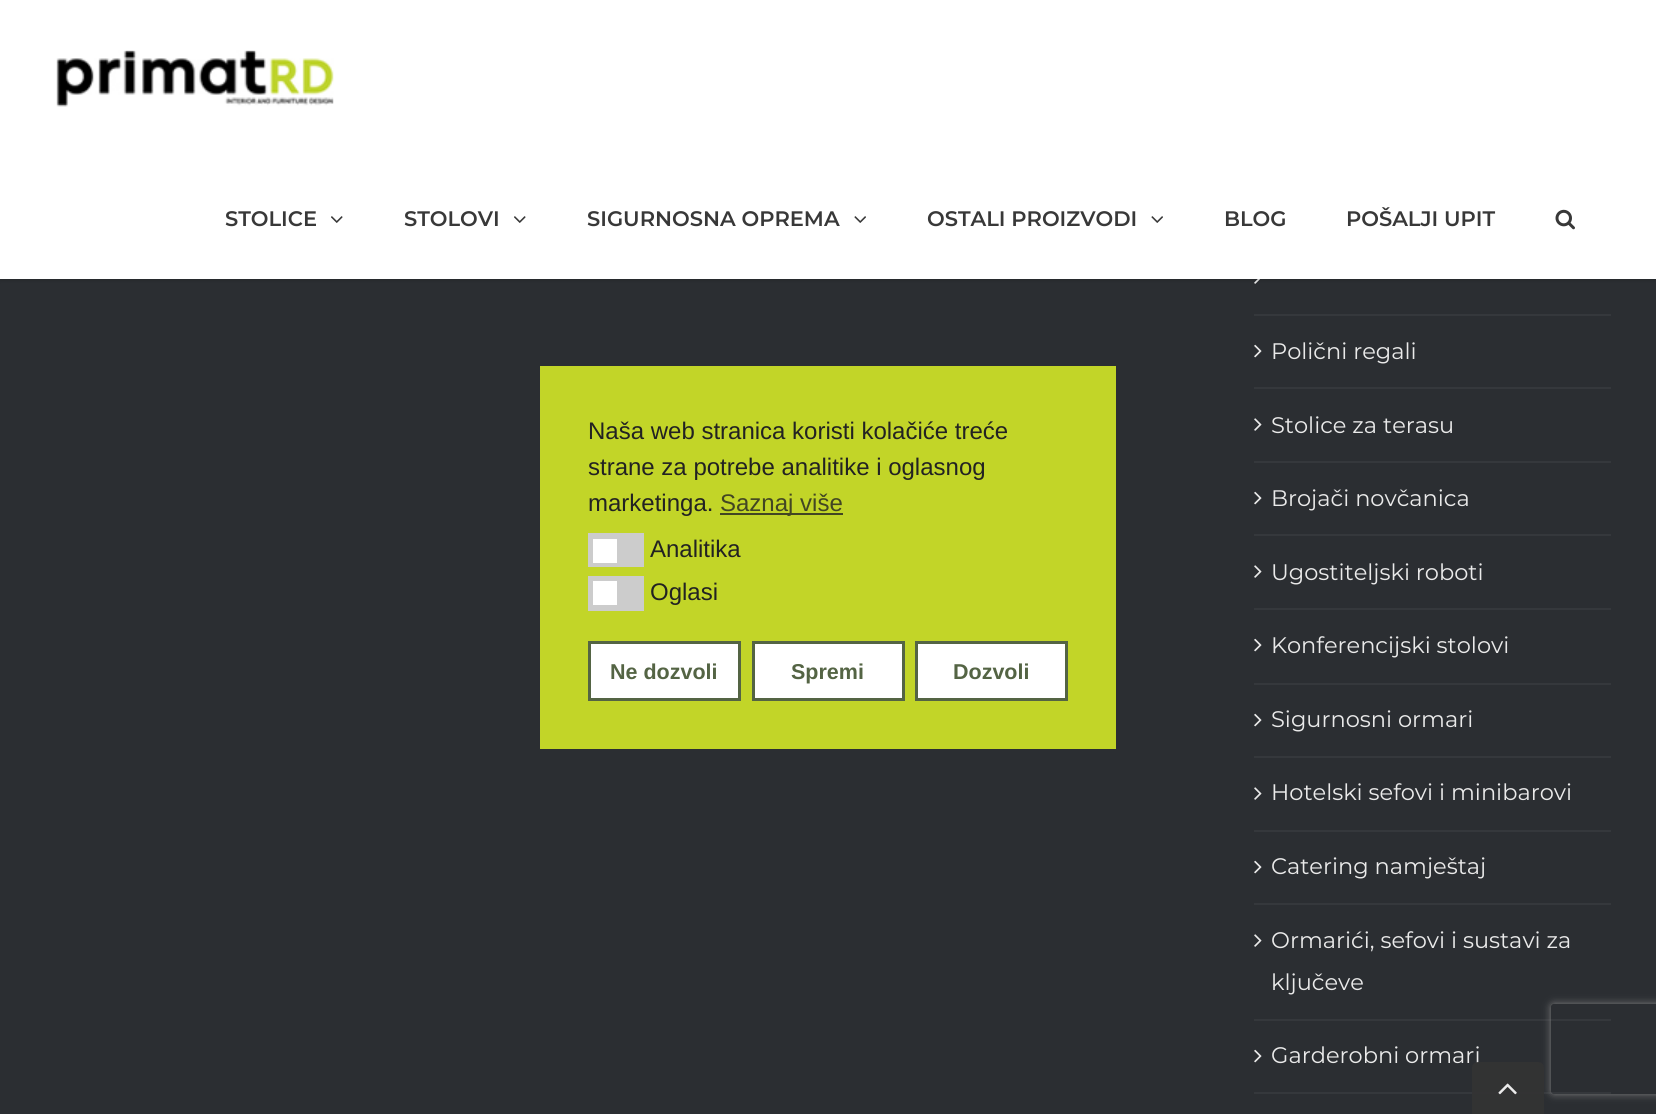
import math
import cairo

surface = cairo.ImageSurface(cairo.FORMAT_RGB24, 1656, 1114)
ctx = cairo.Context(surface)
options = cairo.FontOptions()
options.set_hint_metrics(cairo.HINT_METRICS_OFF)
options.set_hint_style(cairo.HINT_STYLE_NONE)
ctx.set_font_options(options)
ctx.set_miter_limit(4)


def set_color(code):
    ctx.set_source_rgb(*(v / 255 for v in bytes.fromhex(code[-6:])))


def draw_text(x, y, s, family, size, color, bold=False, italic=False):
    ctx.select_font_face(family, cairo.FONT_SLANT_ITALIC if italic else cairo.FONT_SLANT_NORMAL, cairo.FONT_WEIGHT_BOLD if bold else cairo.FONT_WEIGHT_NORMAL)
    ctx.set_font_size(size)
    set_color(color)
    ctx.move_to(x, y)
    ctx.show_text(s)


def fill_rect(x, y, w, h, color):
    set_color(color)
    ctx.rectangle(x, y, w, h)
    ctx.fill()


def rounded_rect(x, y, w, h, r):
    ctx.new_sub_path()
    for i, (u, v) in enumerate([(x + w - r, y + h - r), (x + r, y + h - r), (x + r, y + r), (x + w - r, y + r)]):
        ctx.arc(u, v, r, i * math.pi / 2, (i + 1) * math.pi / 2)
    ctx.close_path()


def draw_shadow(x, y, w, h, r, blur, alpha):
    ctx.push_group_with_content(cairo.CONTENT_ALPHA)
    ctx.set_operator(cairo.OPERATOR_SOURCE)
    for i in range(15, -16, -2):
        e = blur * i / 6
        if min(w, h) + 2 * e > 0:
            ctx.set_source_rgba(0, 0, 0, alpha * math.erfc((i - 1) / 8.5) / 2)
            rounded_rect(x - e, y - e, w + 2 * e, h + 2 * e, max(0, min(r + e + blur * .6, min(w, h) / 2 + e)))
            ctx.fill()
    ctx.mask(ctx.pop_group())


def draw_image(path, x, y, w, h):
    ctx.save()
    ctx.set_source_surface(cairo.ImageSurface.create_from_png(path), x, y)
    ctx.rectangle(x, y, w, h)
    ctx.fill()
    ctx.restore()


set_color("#2b2e32")
ctx.paint()
draw_image("assets/img5.png", 1254, 279, 6, 5)
set_color("#000000")
draw_shadow(0, 2, 1656, 279, 0, 2, 0.12)
fill_rect(0, 0, 1656, 279, "#ffffff")
draw_image("assets/img1.png", 56, 50, 278, 57)
draw_text(225, 226, "STOLICE", "Montserrat SemiBold", 21, "#383838")
draw_image("assets/img2.png", 331, 216, 12, 7)
draw_text(404, 226, "STOLOVI", "Montserrat SemiBold", 21, "#383838")
draw_image("assets/img2.png", 514, 216, 12, 7)
draw_text(587, 226, "SIGURNOSNA OPREMA", "Montserrat SemiBold", 21, "#383838")
draw_image("assets/img3.png", 854, 216, 12, 7)
draw_text(927, 226, "OSTALI PROIZVODI", "Montserrat SemiBold", 21, "#383838")
draw_image("assets/img3.png", 1151, 216, 12, 7)
draw_text(1224, 226, "BLOG", "Montserrat SemiBold", 21, "#383838")
draw_text(1346, 226, "POŠALJI UPIT", "Montserrat SemiBold", 21, "#383838")
draw_image("assets/img4.png", 1555, 209, 20, 21)
fill_rect(1254, 314, 357, 2, "#35383c")
fill_rect(1254, 387, 357, 2, "#35383c")
draw_image("assets/img6.png", 1254, 344, 8, 14)
draw_text(1271, 359, "Polični regali", "Montserrat", 22.5, "#eaeaea")
fill_rect(1254, 461, 357, 2, "#35383c")
draw_image("assets/img7.png", 1254, 418, 8, 13)
draw_text(1271, 433, "Stolice za terasu", "Montserrat", 22.5, "#eaeaea")
fill_rect(1254, 534, 357, 2, "#35383c")
draw_image("assets/img6.png", 1254, 491, 8, 14)
draw_text(1271, 506, "Brojači novčanica", "Montserrat", 22.5, "#eaeaea")
fill_rect(1254, 608, 357, 2, "#35383c")
draw_image("assets/img7.png", 1254, 565, 8, 13)
draw_text(1271, 580, "Ugostiteljski roboti", "Montserrat", 22.5, "#eaeaea")
fill_rect(1254, 683, 357, 2, "#35383c")
draw_image("assets/img6.png", 1254, 638, 8, 14)
draw_text(1271, 653, "Konferencijski stolovi", "Montserrat", 22.5, "#eaeaea")
fill_rect(1254, 756, 357, 2, "#35383c")
draw_image("assets/img6.png", 1254, 713, 8, 14)
draw_text(1271, 727, "Sigurnosni ormari", "Montserrat", 22.5, "#eaeaea")
fill_rect(1254, 830, 357, 2, "#35383c")
draw_image("assets/img7.png", 1254, 787, 8, 13)
draw_text(1271, 800, "Hotelski sefovi i minibarovi", "Montserrat", 22.5, "#eaeaea")
fill_rect(1254, 903, 357, 2, "#35383c")
draw_image("assets/img6.png", 1254, 860, 8, 14)
draw_text(1271, 874, "Catering namještaj", "Montserrat", 22.5, "#eaeaea")
fill_rect(1254, 1019, 357, 2, "#35383c")
draw_image("assets/img7.png", 1254, 934, 8, 13)
draw_text(1271, 948, "Ormarići, sefovi i sustavi za", "Montserrat", 22.5, "#eaeaea")
draw_text(1271, 990, "ključeve", "Montserrat", 22.5, "#eaeaea")
fill_rect(1254, 1092, 357, 2, "#35383c")
draw_image("assets/img6.png", 1254, 1049, 8, 14)
draw_text(1271, 1063, "Garderobni ormari", "Montserrat", 22.5, "#eaeaea")
fill_rect(540, 366, 576, 383, "#c2d528")
draw_text(588, 439, "Naša web stranica koristi kolačiće treće", "Liberation Sans", 24, "#222222")
draw_text(588, 475, "strane za potrebe analitike i oglasnog", "Liberation Sans", 24, "#222222")
draw_text(588, 511, "marketinga.", "Liberation Sans", 24, "#222222")
fill_rect(720, 513, 123, 2, "#424623")
draw_text(720, 511, "Saznaj više", "Liberation Sans", 24, "#424623")
fill_rect(588, 533, 56, 34, "#cccccc")
fill_rect(593, 539, 24, 24, "#ffffff")
draw_text(650, 557, "Analitika", "Liberation Sans", 24, "#222222")
fill_rect(588, 576, 56, 35, "#cccccc")
fill_rect(593, 581, 24, 24, "#ffffff")
draw_text(650, 600, "Oglasi", "Liberation Sans", 24, "#222222")
set_color("#ffffff")
ctx.rectangle(589.5, 642.5, 150, 57)
ctx.fill_preserve()
set_color("#546444")
ctx.set_line_width(3)
ctx.stroke()
draw_text(610, 679, "Ne dozvoli", "Liberation Sans", 21.5, "#546444", bold=True)
set_color("#ffffff")
ctx.rectangle(753.5, 642.5, 150, 57)
ctx.fill_preserve()
set_color("#546444")
ctx.stroke()
draw_text(791, 679, "Spremi", "Liberation Sans", 21.5, "#546444", bold=True)
set_color("#ffffff")
ctx.rectangle(916.5, 642.5, 150, 57)
ctx.fill_preserve()
set_color("#546444")
ctx.stroke()
draw_text(953, 679, "Dozvoli", "Liberation Sans", 21.5, "#546444", bold=True)
ctx.save()
ctx.set_fill_rule(cairo.FILL_RULE_EVEN_ODD)
ctx.new_path()
ctx.move_to(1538, 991)
ctx.line_to(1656, 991)
ctx.line_to(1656, 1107)
ctx.line_to(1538, 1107)
ctx.close_path()
ctx.move_to(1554, 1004)
ctx.line_to(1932, 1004)
ctx.curve_to(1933.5, 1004, 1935, 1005.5, 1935, 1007)
ctx.line_to(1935, 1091)
ctx.curve_to(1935, 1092.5, 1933.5, 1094, 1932, 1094)
ctx.line_to(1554, 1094)
ctx.curve_to(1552.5, 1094, 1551, 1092.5, 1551, 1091)
ctx.line_to(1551, 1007)
ctx.curve_to(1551, 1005.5, 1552.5, 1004, 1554, 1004)
ctx.close_path()
ctx.clip()
set_color("#808080")
draw_shadow(1551, 1004, 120, 90, 3, 4, 1)
ctx.restore()
ctx.set_source_rgba(0.2, 0.2, 0.2, 0.9)
ctx.new_path()
ctx.move_to(1478, 1062)
ctx.line_to(1538, 1062)
ctx.curve_to(1541.5, 1062, 1544, 1064.5, 1544, 1068)
ctx.line_to(1544, 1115)
ctx.line_to(1472, 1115)
ctx.line_to(1472, 1068)
ctx.curve_to(1472, 1064.5, 1474.5, 1062, 1478, 1062)
ctx.close_path()
ctx.fill()
draw_image("assets/img8.png", 1498, 1083, 19, 12)
surface.write_to_png("output.png")
